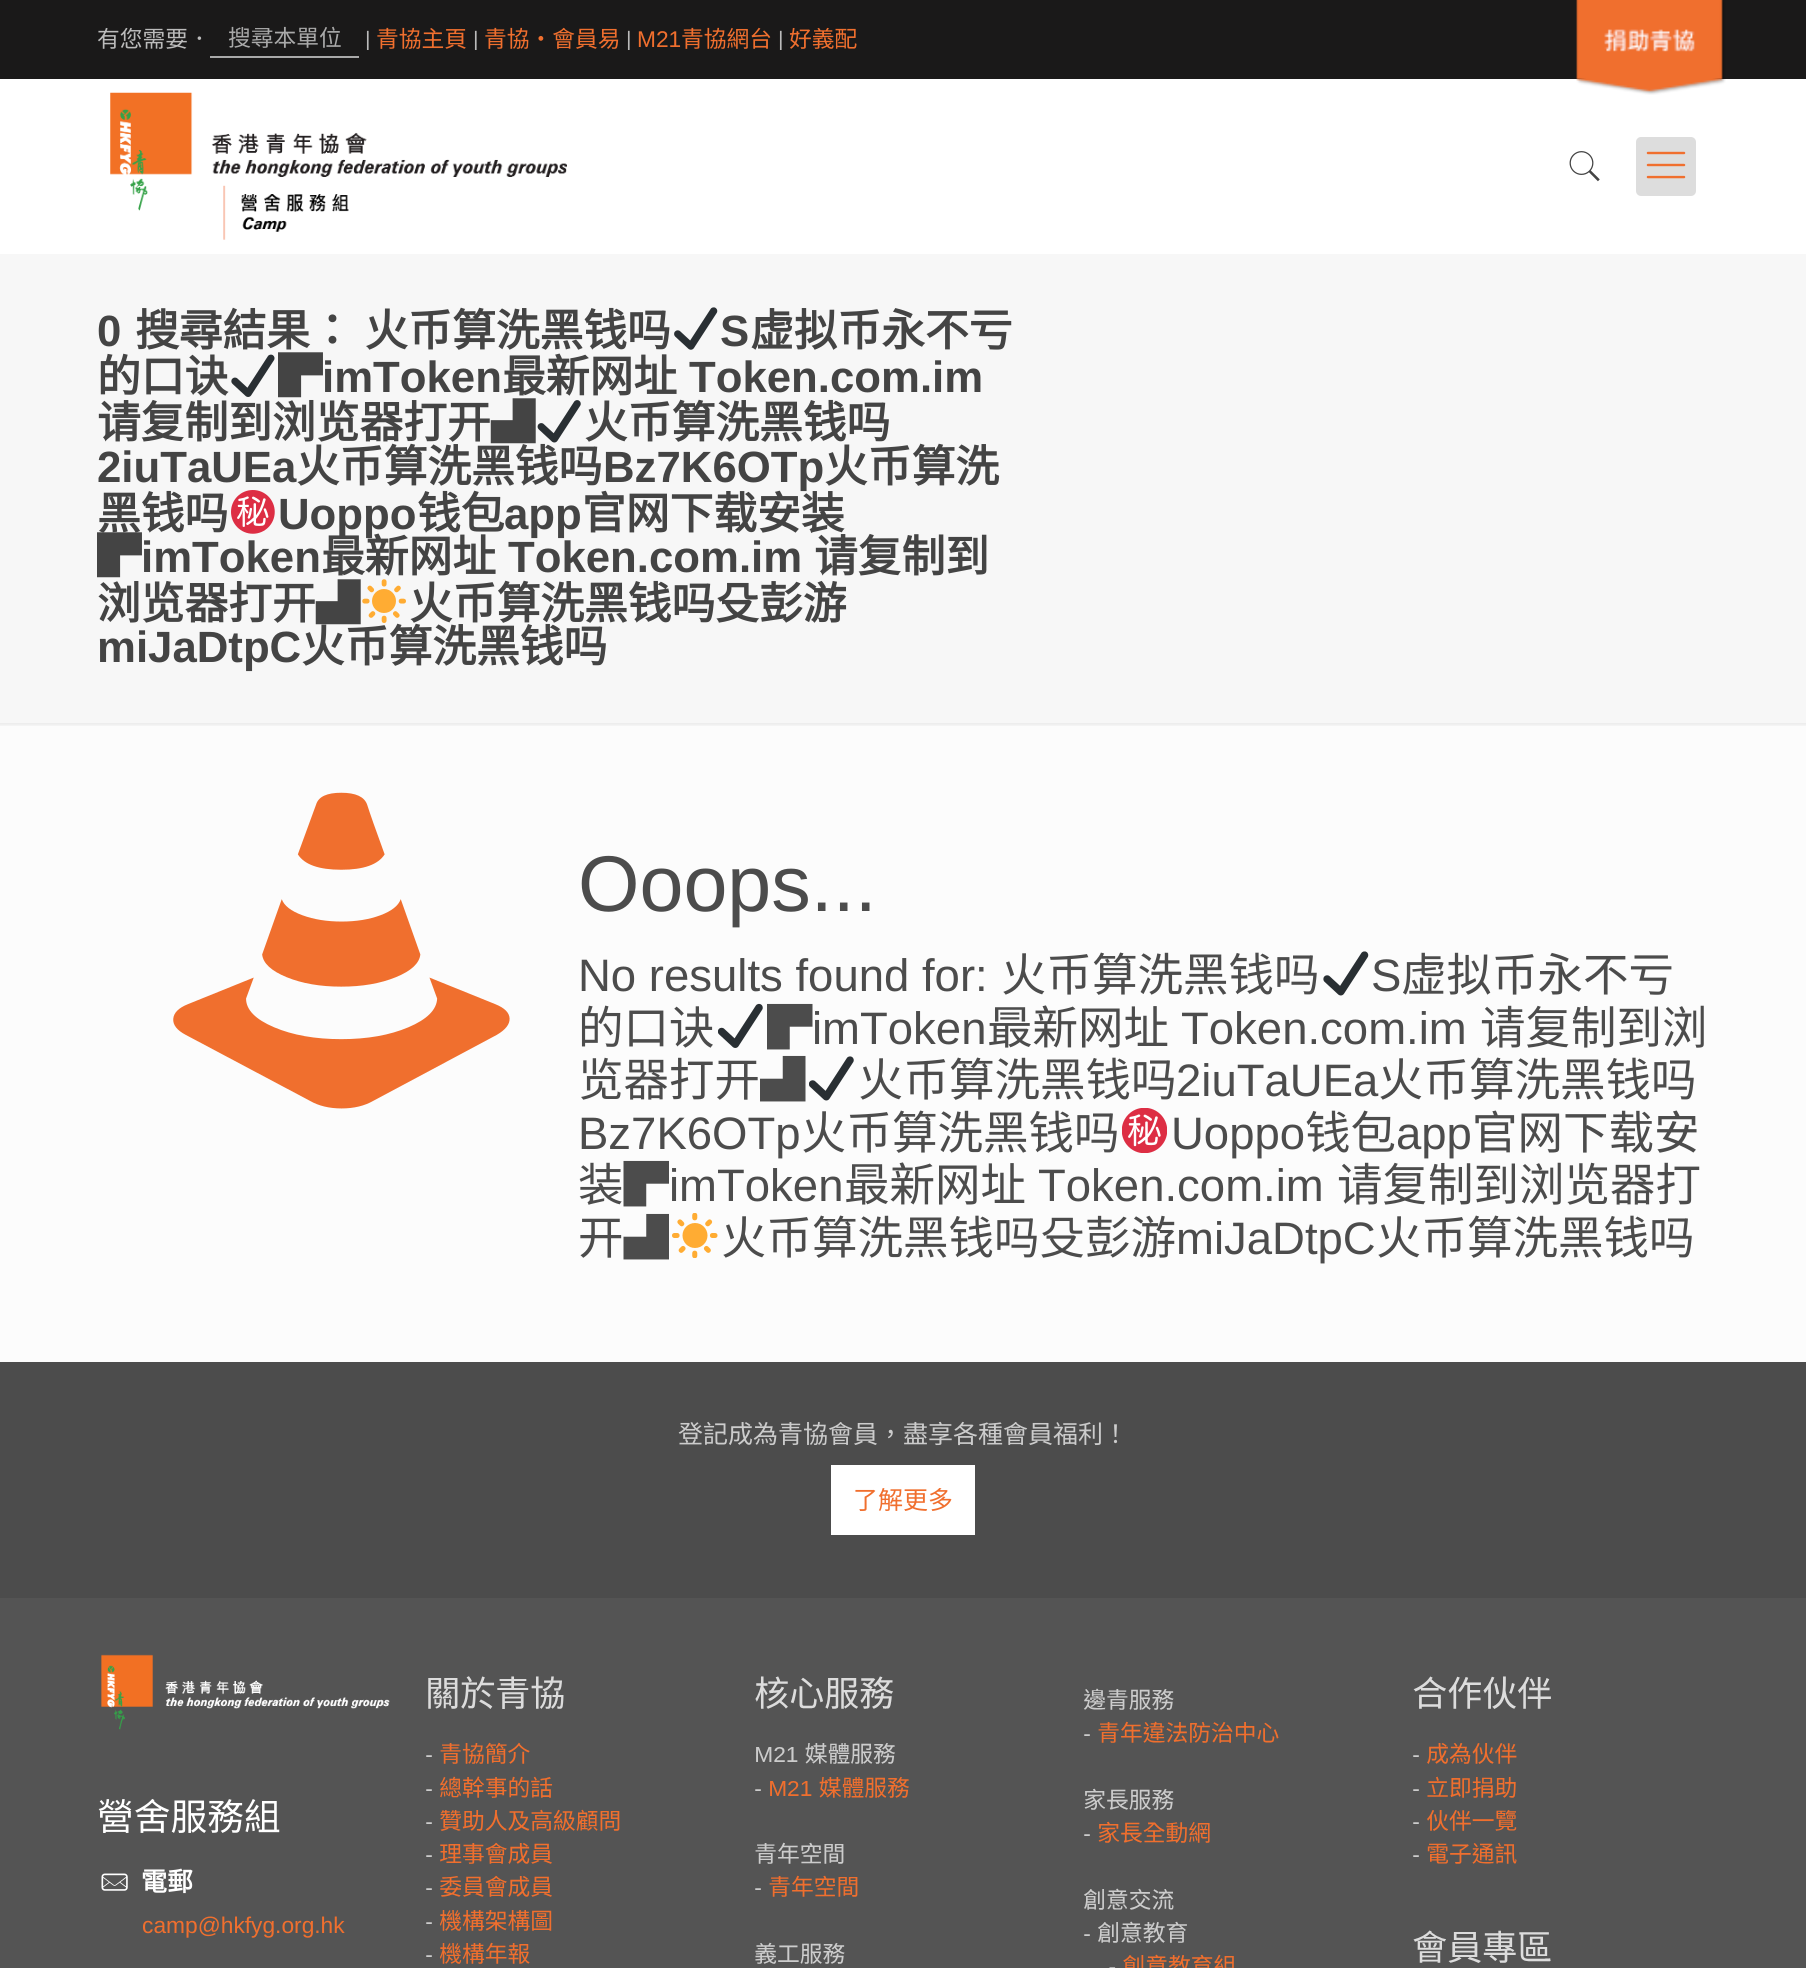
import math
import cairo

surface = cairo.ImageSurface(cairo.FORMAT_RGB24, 1806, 1968)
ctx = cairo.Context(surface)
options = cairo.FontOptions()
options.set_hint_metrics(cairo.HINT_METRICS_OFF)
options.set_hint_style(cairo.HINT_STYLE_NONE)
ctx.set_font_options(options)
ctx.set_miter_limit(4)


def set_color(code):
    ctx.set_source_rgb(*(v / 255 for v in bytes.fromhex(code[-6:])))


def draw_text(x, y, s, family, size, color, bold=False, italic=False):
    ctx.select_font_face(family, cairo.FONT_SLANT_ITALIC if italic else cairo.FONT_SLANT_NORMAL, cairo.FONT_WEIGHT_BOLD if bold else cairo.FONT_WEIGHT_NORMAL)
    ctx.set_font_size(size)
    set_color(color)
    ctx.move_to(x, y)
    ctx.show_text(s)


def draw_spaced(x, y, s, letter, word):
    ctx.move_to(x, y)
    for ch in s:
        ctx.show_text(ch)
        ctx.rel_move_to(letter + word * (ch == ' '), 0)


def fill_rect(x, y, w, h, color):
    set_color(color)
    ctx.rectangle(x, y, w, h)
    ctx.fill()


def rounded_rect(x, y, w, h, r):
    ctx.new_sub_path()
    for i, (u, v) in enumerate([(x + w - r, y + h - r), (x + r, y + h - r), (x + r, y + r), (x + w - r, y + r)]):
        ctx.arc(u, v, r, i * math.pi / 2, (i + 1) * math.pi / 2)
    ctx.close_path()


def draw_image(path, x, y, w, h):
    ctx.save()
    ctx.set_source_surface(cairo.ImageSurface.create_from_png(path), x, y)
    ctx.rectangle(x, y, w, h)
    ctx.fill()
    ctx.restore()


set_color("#fcfcfc")
ctx.paint()
fill_rect(0, 0, 1806, 79, "#1a1919")
draw_text(97, 47, "有您需要．", "Noto Sans CJK HK", 22.75, "#bbbbbb")
fill_rect(210, 56, 149, 2, "#a9a9a9")
draw_text(228, 46, "搜尋本單位", "Noto Sans CJK HK", 22.75, "#a9a9a9")
draw_text(365, 47, "|", "Roboto", 22.75, "#bbbbbb")
draw_text(376, 47, "青協主頁", "Noto Sans CJK HK", 22.75, "#f06f2e")
draw_text(473, 47, "|", "Roboto", 22.75, "#bbbbbb")
draw_text(484, 47, "青協・會員易", "Noto Sans CJK HK", 22.75, "#f06f2e")
draw_text(626, 47, "|", "Roboto", 22.75, "#bbbbbb")
draw_text(637, 47, "M21", "Liberation Sans", 22.75, "#f06f2e")
draw_text(681, 47, "青協網台", "Noto Sans CJK HK", 22.75, "#f06f2e")
draw_text(778, 47, "|", "Roboto", 22.75, "#bbbbbb")
draw_text(789, 47, "好義配", "Noto Sans CJK HK", 22.75, "#f06f2e")
fill_rect(0, 79, 1806, 175, "#ffffff")
draw_image("assets/img1.png", 1576, 0, 150, 95)
draw_image("assets/img2.png", 110, 92, 457, 148)
set_color("#dddddd")
rounded_rect(1636, 137, 60, 59, 5)
ctx.fill()
draw_image("assets/img3.png", 1646, 151, 40, 28)
draw_image("assets/img4.png", 1569, 151, 31, 31)
fill_rect(0, 254, 1806, 469, "#f7f7f7")
draw_text(97, 346, "0", "Liberation Sans", 43.75, "#444444", bold=True)
ctx.select_font_face("Noto Sans CJK HK", cairo.FONT_SLANT_NORMAL, cairo.FONT_WEIGHT_BOLD)
draw_spaced(135, 346, "搜尋結果： 火币算洗黑钱吗", 0, 1)
draw_image("assets/img5.png", 674, 307, 44, 43)
draw_text(720, 346, "S", "Liberation Sans", 43.75, "#444444", bold=True)
draw_text(750, 346, "虚拟币永不亏", "Noto Sans CJK HK", 43.75, "#444444", bold=True)
draw_text(97, 392, "的口诀", "Noto Sans CJK HK", 43.75, "#444444", bold=True)
draw_image("assets/img6.png", 231, 354, 44, 43)
draw_text(278, 392, "▛", "Noto Sans CJK HK", 43.75, "#444444", bold=True)
draw_text(322, 392, "imToken", "Liberation Sans", 43.75, "#444444", bold=True)
draw_text(502, 392, "最新网址", "Noto Sans CJK HK", 43.75, "#444444", bold=True)
draw_text(689, 392, "Token.com.im", "Liberation Sans", 43.75, "#444444", bold=True)
draw_text(97, 438, "请复制到浏览器打开▟", "Noto Sans CJK HK", 43.75, "#444444", bold=True)
draw_image("assets/img7.png", 537, 400, 44, 43)
draw_text(584, 438, "火币算洗黑钱吗", "Noto Sans CJK HK", 43.75, "#444444", bold=True)
draw_text(97, 482, "2iuTaUEa", "Liberation Sans", 43.75, "#444444", bold=True)
draw_text(296, 482, "火币算洗黑钱吗", "Noto Sans CJK HK", 43.75, "#444444", bold=True)
draw_text(603, 482, "Bz7K6OTp", "Liberation Sans", 43.75, "#444444", bold=True)
draw_text(824, 482, "火币算洗", "Noto Sans CJK HK", 43.75, "#444444", bold=True)
draw_text(97, 529, "黑钱吗", "Noto Sans CJK HK", 43.75, "#444444", bold=True)
draw_image("assets/img8.png", 231, 490, 44, 44)
draw_text(278, 529, "Uoppo", "Liberation Sans", 43.75, "#444444", bold=True)
draw_text(417, 529, "钱包", "Noto Sans CJK HK", 43.75, "#444444", bold=True)
draw_text(504, 529, "app", "Liberation Sans", 43.75, "#444444", bold=True)
draw_text(582, 529, "官网下载安装", "Noto Sans CJK HK", 43.75, "#444444", bold=True)
draw_text(97, 572, "▛", "Noto Sans CJK HK", 43.75, "#444444", bold=True)
draw_text(141, 572, "imToken", "Liberation Sans", 43.75, "#444444", bold=True)
draw_text(321, 572, "最新网址", "Noto Sans CJK HK", 43.75, "#444444", bold=True)
draw_text(508, 572, "Token.com.im", "Liberation Sans", 43.75, "#444444", bold=True)
draw_text(814, 572, "请复制到", "Noto Sans CJK HK", 43.75, "#444444", bold=True)
draw_text(97, 619, "浏览器打开▟", "Noto Sans CJK HK", 43.75, "#444444", bold=True)
draw_image("assets/img9.png", 362, 579, 44, 44)
draw_text(409, 619, "火币算洗黑钱吗殳彭游", "Noto Sans CJK HK", 43.75, "#444444", bold=True)
draw_text(97, 662, "miJaDtpC", "Liberation Sans", 43.75, "#444444", bold=True)
draw_text(301, 662, "火币算洗黑钱吗", "Noto Sans CJK HK", 43.75, "#444444", bold=True)
draw_image("assets/img10.png", 0, 723, 1806, 3)
draw_image("assets/img11.png", 173, 792, 337, 317)
draw_text(578, 911, "Ooops...", "Liberation Sans", 79, "#4c4c4c")
draw_text(578, 991, "No results found for:", "Liberation Sans", 45.5, "#4c4c4c")
draw_text(1001, 991, "火币算洗黑钱吗", "Noto Sans CJK HK", 45.5, "#4c4c4c")
draw_image("assets/img12.png", 1323, 951, 46, 45)
draw_text(1371, 991, "S", "Liberation Sans", 45.5, "#4c4c4c")
draw_text(1401, 991, "虚拟币永不亏", "Noto Sans CJK HK", 45.5, "#4c4c4c")
draw_text(578, 1044, "的口诀", "Noto Sans CJK HK", 45.5, "#4c4c4c")
draw_image("assets/img13.png", 718, 1003, 45, 45)
draw_text(767, 1044, "▛", "Noto Sans CJK HK", 45.5, "#4c4c4c")
draw_text(812, 1044, "imToken", "Liberation Sans", 45.5, "#4c4c4c")
draw_text(987, 1044, "最新网址", "Noto Sans CJK HK", 45.5, "#4c4c4c")
draw_text(1181, 1044, "Token.com.im", "Liberation Sans", 45.5, "#4c4c4c")
draw_text(1480, 1044, "请复制到浏", "Noto Sans CJK HK", 45.5, "#4c4c4c")
draw_text(578, 1096, "览器打开▟", "Noto Sans CJK HK", 45.5, "#4c4c4c")
draw_image("assets/img14.png", 809, 1056, 45, 45)
draw_text(858, 1096, "火币算洗黑钱吗", "Noto Sans CJK HK", 45.5, "#4c4c4c")
draw_text(1176, 1096, "2iuTaUEa", "Liberation Sans", 45.5, "#4c4c4c")
draw_text(1378, 1096, "火币算洗黑钱吗", "Noto Sans CJK HK", 45.5, "#4c4c4c")
draw_text(578, 1149, "Bz7K6OTp", "Liberation Sans", 45.5, "#4c4c4c")
draw_text(801, 1149, "火币算洗黑钱吗", "Noto Sans CJK HK", 45.5, "#4c4c4c")
draw_image("assets/img15.png", 1122, 1108, 45, 45)
draw_text(1171, 1149, "Uoppo", "Liberation Sans", 45.5, "#4c4c4c")
draw_text(1305, 1149, "钱包", "Noto Sans CJK HK", 45.5, "#4c4c4c")
draw_text(1396, 1149, "app", "Liberation Sans", 45.5, "#4c4c4c")
draw_text(1472, 1149, "官网下载安", "Noto Sans CJK HK", 45.5, "#4c4c4c")
draw_text(578, 1201, "装▛", "Noto Sans CJK HK", 45.5, "#4c4c4c")
draw_text(669, 1201, "imToken", "Liberation Sans", 45.5, "#4c4c4c")
draw_text(844, 1201, "最新网址", "Noto Sans CJK HK", 45.5, "#4c4c4c")
draw_text(1038, 1201, "Token.com.im", "Liberation Sans", 45.5, "#4c4c4c")
draw_text(1337, 1201, "请复制到浏览器打", "Noto Sans CJK HK", 45.5, "#4c4c4c")
draw_text(578, 1254, "开▟", "Noto Sans CJK HK", 45.5, "#4c4c4c")
draw_image("assets/img16.png", 672, 1213, 46, 45)
draw_text(721, 1254, "火币算洗黑钱吗殳彭游", "Noto Sans CJK HK", 45.5, "#4c4c4c")
draw_text(1176, 1254, "miJaDtpC", "Liberation Sans", 45.5, "#4c4c4c")
draw_text(1376, 1254, "火币算洗黑钱吗", "Noto Sans CJK HK", 45.5, "#4c4c4c")
fill_rect(0, 1598, 1806, 370, "#545454")
fill_rect(0, 1362, 1806, 236, "#4c4c4c")
draw_text(678, 1443, "登記成為青協會員，盡享各種會員福利！", "Noto Sans CJK HK", 25, "#cccccc")
fill_rect(831, 1465, 144, 70, "#ffffff")
draw_text(853, 1509, "了解更多", "Noto Sans CJK HK", 25, "#f06f2e")
draw_image("assets/img17.png", 101, 1654, 289, 76)
draw_text(97, 1830, "營舍服務組", "Noto Sans CJK HK", 36.75, "#ffffff")
draw_image("assets/img18.png", 101, 1873, 27, 18)
draw_text(141, 1891, "電郵", "Noto Sans CJK HK", 26, "#ffffff", bold=True)
draw_text(142, 1933, "camp@hkfyg.org.hk", "Liberation Sans", 22.75, "#f06f2e")
draw_image("assets/img19.png", 426, 1676, 194, 288)
draw_image("assets/img20.png", 755, 1676, 154, 288)
draw_image("assets/img21.png", 1084, 1688, 195, 280)
draw_image("assets/img22.png", 1413, 1676, 138, 287)
surface.write_to_png("output.png")
